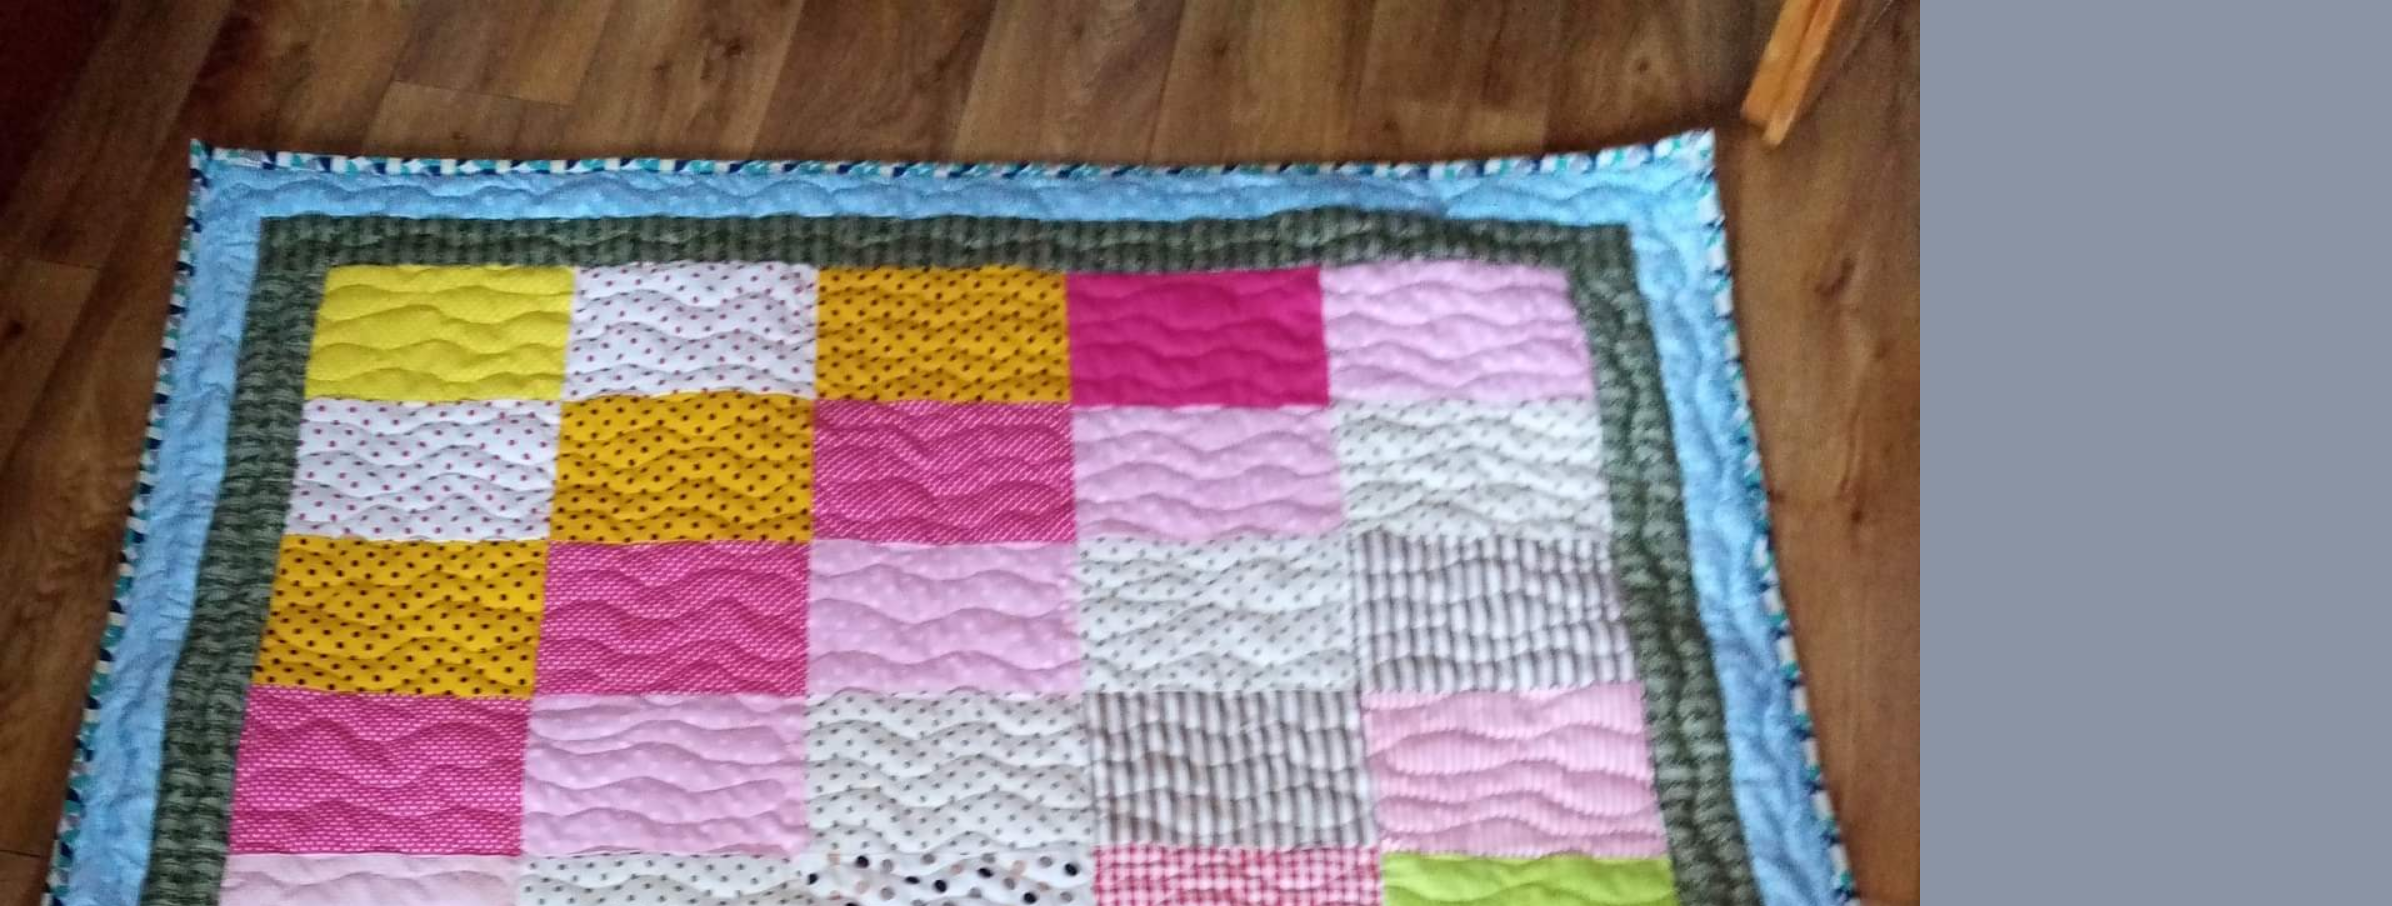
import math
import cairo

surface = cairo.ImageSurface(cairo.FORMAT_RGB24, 2392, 906)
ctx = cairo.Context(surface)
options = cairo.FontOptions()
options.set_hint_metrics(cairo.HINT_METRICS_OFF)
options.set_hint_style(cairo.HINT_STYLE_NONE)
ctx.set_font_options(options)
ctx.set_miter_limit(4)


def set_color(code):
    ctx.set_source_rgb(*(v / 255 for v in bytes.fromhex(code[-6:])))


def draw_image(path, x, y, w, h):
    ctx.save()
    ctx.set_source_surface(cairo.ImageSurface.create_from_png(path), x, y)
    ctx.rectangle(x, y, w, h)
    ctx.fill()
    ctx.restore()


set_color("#8b94a5")
ctx.paint()
draw_image("assets/img1.png", 0, 0, 1920, 906)
surface.write_to_png("output.png")
